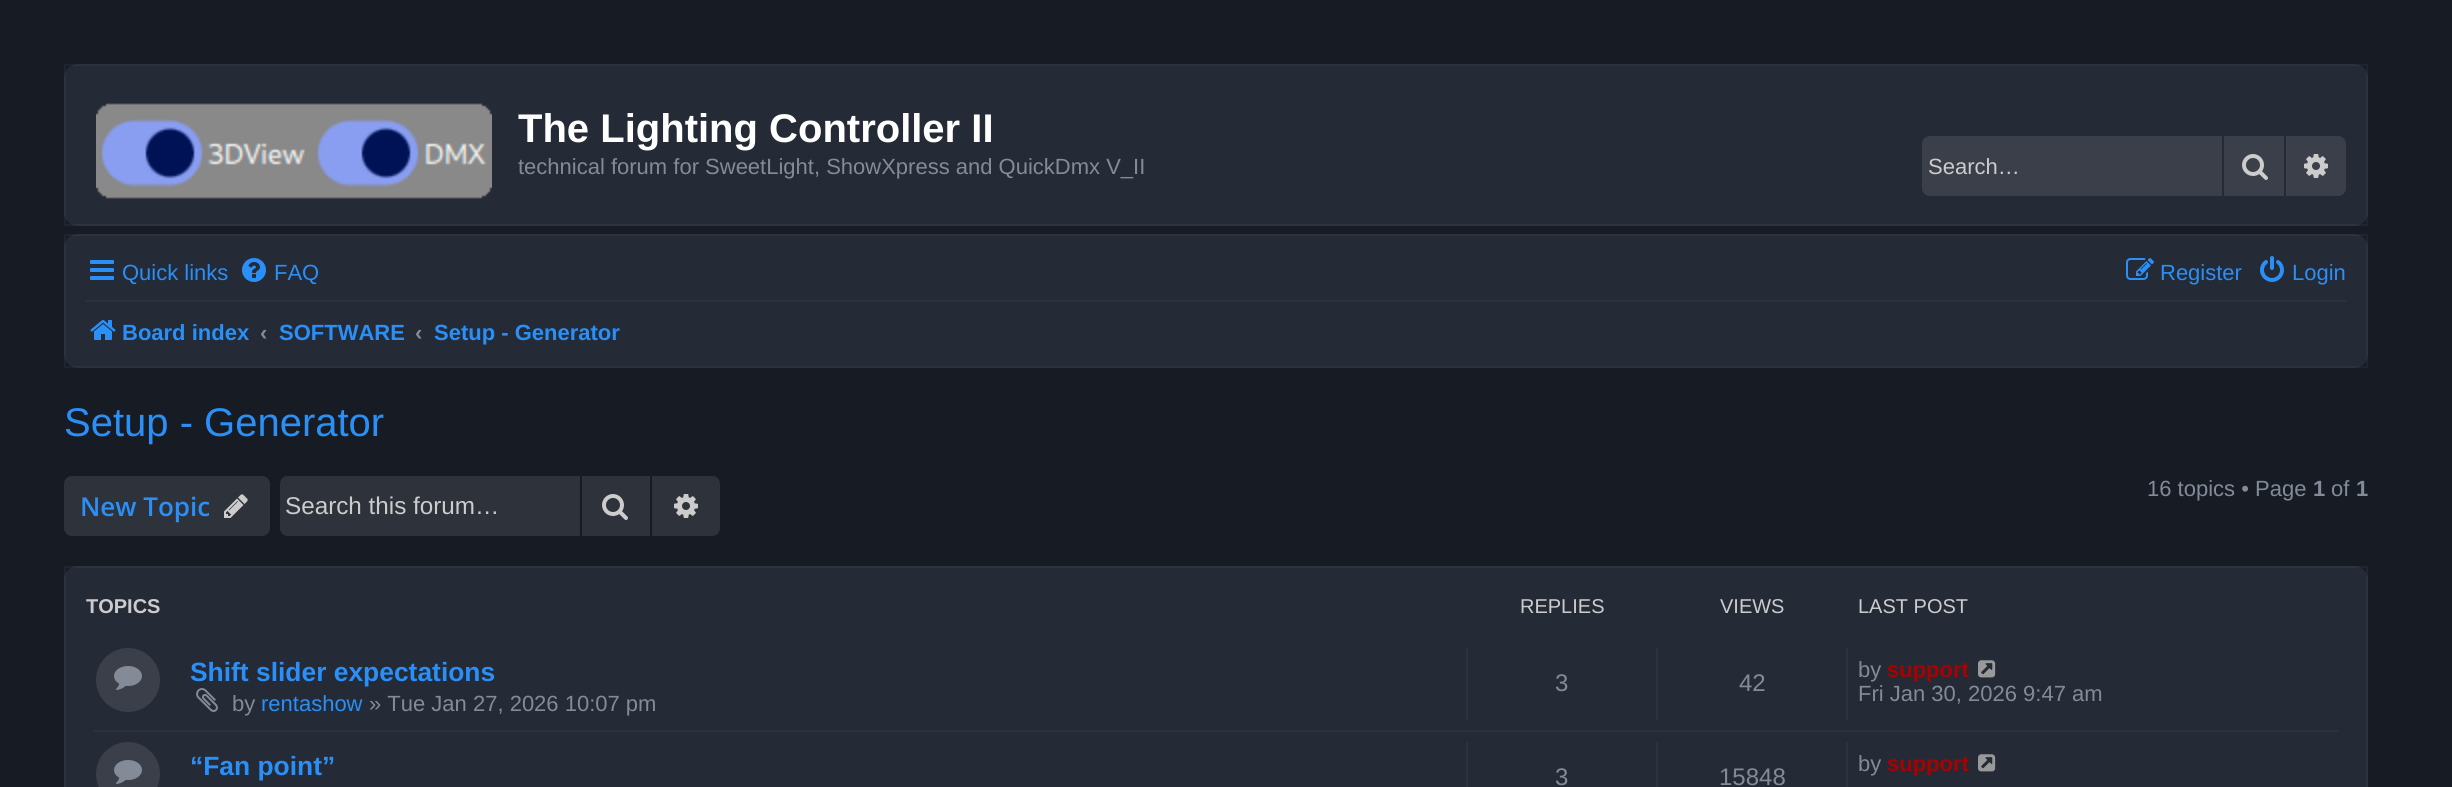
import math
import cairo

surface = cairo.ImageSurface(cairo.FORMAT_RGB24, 2452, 787)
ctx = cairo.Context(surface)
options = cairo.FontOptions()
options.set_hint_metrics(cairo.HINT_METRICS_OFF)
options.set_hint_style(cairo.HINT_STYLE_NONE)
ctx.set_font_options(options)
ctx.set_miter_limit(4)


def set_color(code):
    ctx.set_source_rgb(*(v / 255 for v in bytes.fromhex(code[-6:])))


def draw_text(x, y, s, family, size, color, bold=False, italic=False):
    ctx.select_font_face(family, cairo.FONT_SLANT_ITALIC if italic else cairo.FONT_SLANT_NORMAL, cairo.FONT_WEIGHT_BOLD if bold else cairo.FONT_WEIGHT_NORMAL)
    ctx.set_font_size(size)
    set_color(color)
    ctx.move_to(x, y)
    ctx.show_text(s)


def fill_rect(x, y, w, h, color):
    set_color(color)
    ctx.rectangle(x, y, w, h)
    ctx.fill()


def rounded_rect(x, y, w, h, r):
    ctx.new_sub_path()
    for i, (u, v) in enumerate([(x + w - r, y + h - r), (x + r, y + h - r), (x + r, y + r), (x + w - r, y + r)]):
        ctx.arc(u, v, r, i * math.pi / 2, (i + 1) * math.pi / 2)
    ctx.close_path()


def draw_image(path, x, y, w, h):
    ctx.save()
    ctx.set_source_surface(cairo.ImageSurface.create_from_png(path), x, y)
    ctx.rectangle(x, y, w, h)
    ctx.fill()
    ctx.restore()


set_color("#171b24")
ctx.paint()
set_color("#242a36")
rounded_rect(64, 64, 2304, 162, 14)
ctx.fill()
ctx.rectangle(65, 65, 2302, 160)
ctx.set_source_rgba(1, 1, 1, 0.04)
ctx.stroke()
draw_image("assets/img1.png", 96, 103, 396, 96)
draw_text(518, 142, "The Lighting Controller II", "Liberation Sans", 40, "#ffffff", bold=True)
draw_text(518, 174, "technical forum for SweetLight, ShowXpress and QuickDmx V_II", "Liberation Sans", 22, "#838b98")
set_color("#3a3f4a")
ctx.new_path()
ctx.move_to(1930, 136)
ctx.line_to(2222, 136)
ctx.line_to(2222, 196)
ctx.line_to(1930, 196)
ctx.curve_to(1925.5, 196, 1922, 192.5, 1922, 188)
ctx.line_to(1922, 144)
ctx.curve_to(1922, 139.5, 1925.5, 136, 1930, 136)
ctx.close_path()
ctx.fill()
draw_text(1928, 174, "Search…", "Liberation Sans", 22, "#cccccc")
fill_rect(2224, 136, 60, 60, "#3a3f4a")
draw_image("assets/img2.png", 2242, 154, 26, 26)
ctx.new_path()
ctx.move_to(2286, 136)
ctx.line_to(2338, 136)
ctx.curve_to(2342.5, 136, 2346, 139.5, 2346, 144)
ctx.line_to(2346, 188)
ctx.curve_to(2346, 192.5, 2342.5, 196, 2338, 196)
ctx.line_to(2286, 196)
ctx.close_path()
ctx.fill()
draw_image("assets/img3.png", 2304, 154, 24, 24)
set_color("#242a36")
rounded_rect(64, 234, 2304, 134, 14)
ctx.fill()
ctx.rectangle(65, 235, 2302, 132)
ctx.set_source_rgba(1, 1, 1, 0.04)
ctx.stroke()
draw_image("assets/img4.png", 90, 260, 24, 20)
draw_text(122, 280, "Quick links", "Liberation Sans", 22, "#2a8ff7")
draw_image("assets/img5.png", 242, 258, 24, 24)
draw_text(274, 280, "FAQ", "Liberation Sans", 22, "#2a8ff7")
draw_image("assets/img6.png", 2126, 258, 28, 22)
draw_text(2160, 280, "Register", "Liberation Sans", 22, "#2a8ff7")
draw_image("assets/img7.png", 2260, 256, 24, 26)
draw_text(2292, 280, "Login", "Liberation Sans", 22, "#2a8ff7")
fill_rect(86, 300, 2260, 2, "#2d333e")
draw_image("assets/img8.png", 90, 320, 26, 20)
draw_text(122, 340, "Board index", "Liberation Sans", 22, "#2a8ff7", bold=True)
draw_text(260, 340, "‹", "Liberation Sans", 22, "#838b98", bold=True)
draw_text(279, 340, "SOFTWARE", "Liberation Sans", 22, "#2a8ff7", bold=True)
draw_text(415, 340, "‹", "Liberation Sans", 22, "#838b98", bold=True)
draw_text(434, 340, "Setup - Generator", "Liberation Sans", 22, "#2a8ff7", bold=True)
draw_text(64, 436, "Setup - Generator", "Liberation Sans", 40, "#2a8ff7")
draw_text(2147, 496, "16 topics • Page", "Liberation Sans", 22, "#838b98")
draw_text(2313, 496, "1", "Liberation Sans", 22, "#838b98", bold=True)
draw_text(2331, 496, "of", "Liberation Sans", 22, "#838b98")
draw_text(2356, 496, "1", "Liberation Sans", 22, "#838b98", bold=True)
set_color("#2e323a")
rounded_rect(64, 476, 206, 60, 8)
ctx.fill()
draw_text(80, 516, "New Topic", "Open Sans SemiBold", 26, "#2a8ff7")
draw_image("assets/img9.png", 224, 494, 24, 24)
set_color("#2e323a")
ctx.new_path()
ctx.move_to(288, 476)
ctx.line_to(580, 476)
ctx.line_to(580, 536)
ctx.line_to(288, 536)
ctx.curve_to(283.5, 536, 280, 532.5, 280, 528)
ctx.line_to(280, 484)
ctx.curve_to(280, 479.5, 283.5, 476, 288, 476)
ctx.close_path()
ctx.fill()
draw_text(285, 514, "Search this forum…", "Liberation Sans", 24.25, "#cccccc")
fill_rect(582, 476, 68, 60, "#2e323a")
draw_image("assets/img10.png", 602, 494, 26, 26)
ctx.new_path()
ctx.move_to(652, 476)
ctx.line_to(712, 476)
ctx.curve_to(716.5, 476, 720, 479.5, 720, 484)
ctx.line_to(720, 528)
ctx.curve_to(720, 532.5, 716.5, 536, 712, 536)
ctx.line_to(652, 536)
ctx.close_path()
ctx.fill()
draw_image("assets/img11.png", 674, 494, 24, 24)
set_color("#242a36")
rounded_rect(64, 566, 2304, 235, 14)
ctx.fill()
ctx.rectangle(65, 567, 2302, 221)
ctx.set_source_rgba(1, 1, 1, 0.04)
ctx.stroke()
draw_text(86, 613, "TOPICS", "Liberation Sans", 20, "#cccccc", bold=True)
draw_text(1520, 613, "REPLIES", "Liberation Sans", 20, "#cccccc")
draw_text(1720, 613, "VIEWS", "Liberation Sans", 20, "#cccccc")
draw_text(1858, 613, "LAST POST", "Liberation Sans", 20, "#cccccc")
fill_rect(94, 730, 2244, 2, "#2d333e")
set_color("#3a3f4a")
ctx.new_path()
ctx.arc(128, 680, 32, 0, 2 * math.pi)
ctx.fill()
draw_image("assets/img12.png", 114, 666, 28, 24)
draw_text(190, 681, "Shift slider expectations", "Liberation Sans", 26.4, "#2a8ff7", bold=True)
draw_image("assets/img13.png", 196, 688, 22, 24)
draw_text(232, 711, "by", "Liberation Sans", 22, "#838b98")
draw_text(261, 711, "rentashow", "Liberation Sans", 22, "#2a8ff7")
draw_text(369, 711, "» Tue Jan 27, 2026 10:07 pm", "Liberation Sans", 22, "#838b98")
fill_rect(1466, 648, 2, 72, "#2d333e")
draw_text(1555, 691, "3", "Liberation Sans", 24, "#838b98")
fill_rect(1656, 648, 2, 72, "#2d333e")
draw_text(1739, 691, "42", "Liberation Sans", 24, "#838b98")
fill_rect(1846, 648, 2, 72, "#2d333e")
draw_text(1858, 677, "by", "Liberation Sans", 22, "#838b98")
draw_text(1887, 677, "support", "Liberation Sans", 22, "#aa0000", bold=True)
draw_image("assets/img14.png", 1978, 660, 18, 18)
draw_text(1858, 701, "Fri Jan 30, 2026 9:47 am", "Liberation Sans", 22, "#838b98")
set_color("#3a3f4a")
ctx.new_path()
ctx.arc(128, 774, 32, 0, 2 * math.pi)
ctx.fill()
draw_image("assets/img12.png", 114, 760, 28, 24)
draw_text(190, 775, "“Fan point”", "Liberation Sans", 26.4, "#2a8ff7", bold=True)
fill_rect(1466, 742, 2, 45, "#2d333e")
draw_text(1555, 785, "3", "Liberation Sans", 24, "#838b98")
fill_rect(1656, 742, 2, 45, "#2d333e")
draw_text(1719, 785, "15848", "Liberation Sans", 24, "#838b98")
fill_rect(1846, 742, 2, 45, "#2d333e")
draw_text(1858, 771, "by", "Liberation Sans", 22, "#838b98")
draw_text(1887, 771, "support", "Liberation Sans", 22, "#aa0000", bold=True)
draw_image("assets/img14.png", 1978, 754, 18, 18)
surface.write_to_png("output.png")
